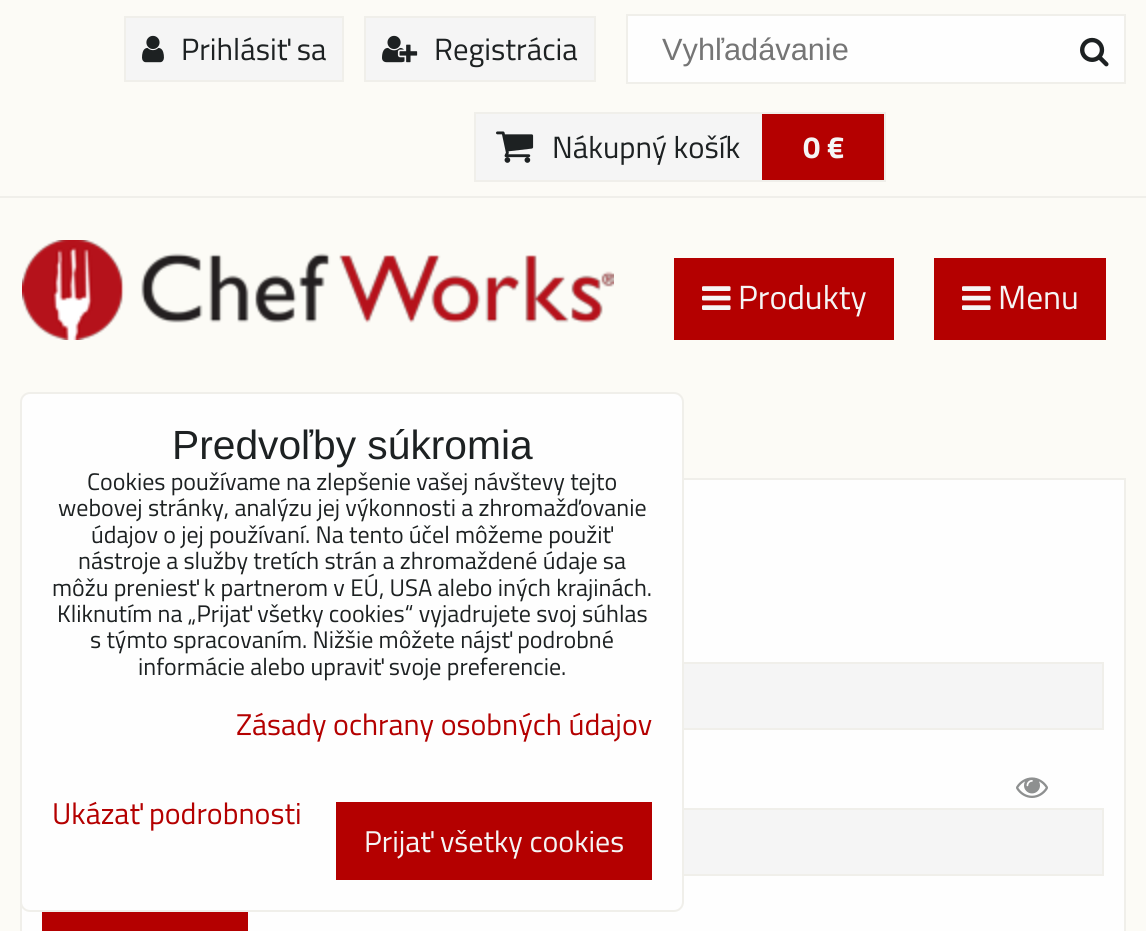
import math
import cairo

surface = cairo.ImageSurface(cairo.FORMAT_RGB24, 1146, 931)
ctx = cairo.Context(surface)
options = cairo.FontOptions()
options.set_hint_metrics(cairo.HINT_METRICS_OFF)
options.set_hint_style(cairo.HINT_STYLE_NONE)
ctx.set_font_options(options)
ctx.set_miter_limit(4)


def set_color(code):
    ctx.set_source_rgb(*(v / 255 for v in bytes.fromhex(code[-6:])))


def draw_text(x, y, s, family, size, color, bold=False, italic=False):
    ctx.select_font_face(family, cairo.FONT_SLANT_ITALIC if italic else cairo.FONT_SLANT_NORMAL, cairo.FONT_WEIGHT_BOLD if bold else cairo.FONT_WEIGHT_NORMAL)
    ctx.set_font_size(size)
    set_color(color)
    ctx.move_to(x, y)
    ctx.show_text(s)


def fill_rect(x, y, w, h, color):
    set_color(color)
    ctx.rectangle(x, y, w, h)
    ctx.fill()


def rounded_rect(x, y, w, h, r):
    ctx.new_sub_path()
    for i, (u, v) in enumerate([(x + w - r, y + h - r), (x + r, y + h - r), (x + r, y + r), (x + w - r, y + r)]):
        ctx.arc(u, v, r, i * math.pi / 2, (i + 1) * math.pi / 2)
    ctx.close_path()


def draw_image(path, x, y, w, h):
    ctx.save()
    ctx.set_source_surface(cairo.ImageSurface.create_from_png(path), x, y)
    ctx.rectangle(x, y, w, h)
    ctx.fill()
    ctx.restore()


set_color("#fcfbf6")
ctx.paint()
fill_rect(0, 196, 1146, 2, "#f0efea")
set_color("#f5f5f5")
ctx.rectangle(125, 17, 218, 64)
ctx.fill_preserve()
set_color("#f0efea")
ctx.stroke()
draw_image("assets/img1.png", 142, 35, 22, 28)
draw_text(181, 60, "Prihlásiť sa", "Titillium Web", 30.75, "#1d2122")
set_color("#f5f5f5")
ctx.rectangle(365, 17, 230, 64)
ctx.fill_preserve()
set_color("#f0efea")
ctx.stroke()
draw_image("assets/img2.png", 382, 35, 36, 28)
draw_text(434, 60, "Registrácia", "Titillium Web", 30.75, "#1d2122")
set_color("#fefefe")
ctx.rectangle(627, 15, 498, 68)
ctx.fill_preserve()
set_color("#f0efea")
ctx.stroke()
draw_text(662, 60, "Vyhľadávanie", "Liberation Sans", 30.75, "#757575")
draw_image("assets/img3.png", 1080, 37, 29, 30)
fill_rect(476, 114, 284, 66, "#f5f5f5")
ctx.rectangle(475, 113, 410, 68)
set_color("#f0efea")
ctx.stroke()
draw_image("assets/img4.png", 496, 131, 38, 32)
draw_text(552, 158, "Nákupný košík", "Titillium Web", 30.75, "#1d2122")
fill_rect(762, 114, 122, 66, "#b40000")
fill_rect(760, 114, 2, 66, "#f5f5f5")
draw_text(803, 158, "0 €", "Titillium Web", 30.75, "#f5f5f5", bold=True)
draw_image("assets/img5.png", 22, 240, 592, 100)
fill_rect(674, 258, 220, 82, "#b40000")
draw_image("assets/img6.png", 702, 286, 29, 24)
draw_text(738, 309, "Produkty", "Titillium Web", 33.5, "#f5f5f5")
fill_rect(934, 258, 172, 82, "#b40000")
draw_image("assets/img6.png", 962, 286, 29, 24)
draw_text(998, 309, "Menu", "Titillium Web", 33.5, "#f5f5f5")
set_color("#fefefe")
ctx.rectangle(21, 479, 1104, 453)
ctx.fill_preserve()
set_color("#f0efea")
ctx.stroke()
fill_rect(684, 664, 418, 64, "#f5f5f5")
ctx.rectangle(43, 663, 1060, 66)
set_color("#f0efea")
ctx.stroke()
draw_image("assets/img7.png", 1016, 777, 32, 21)
fill_rect(684, 810, 418, 64, "#f5f5f5")
ctx.rectangle(43, 809, 1060, 66)
set_color("#f0efea")
ctx.stroke()
fill_rect(42, 912, 206, 19, "#b40000")
set_color("#fefefe")
rounded_rect(21, 393, 662, 518, 9)
ctx.fill_preserve()
set_color("#f0efea")
ctx.stroke()
draw_text(172, 459, "Predvoľby súkromia", "Liberation Sans", 40.75, "#1d2122")
draw_text(87, 490, "Cookies používame na zlepšenie vašej návštevy tejto", "Titillium Web", 24, "#1d2122")
draw_text(58, 516, "webovej stránky, analýzu jej výkonnosti a zhromažďovanie", "Titillium Web", 24, "#1d2122")
draw_text(91, 543, "údajov o jej používaní. Na tento účel môžeme použiť", "Titillium Web", 24, "#1d2122")
draw_text(78, 569, "nástroje a služby tretích strán a zhromaždené údaje sa", "Titillium Web", 24, "#1d2122")
draw_text(52, 596, "môžu preniesť k partnerom v EÚ, USA alebo iných krajinách.", "Titillium Web", 24, "#1d2122")
draw_text(57, 622, "Kliknutím na „Prijať všetky cookies“ vyjadrujete svoj súhlas", "Titillium Web", 24, "#1d2122")
draw_text(90, 648, "s týmto spracovaním. Nižšie môžete nájsť podrobné", "Titillium Web", 24, "#1d2122")
draw_text(138, 675, "informácie alebo upraviť svoje preferencie.", "Titillium Web", 24, "#1d2122")
draw_text(236, 735, "Zásady ochrany osobných údajov", "Titillium Web", 30, "#b40000")
draw_text(52, 824, "Ukázať podrobnosti", "Titillium Web", 30, "#b40000")
fill_rect(336, 802, 316, 78, "#b40000")
draw_text(364, 852, "Prijať všetky cookies", "Titillium Web", 30, "#f5f5f5")
surface.write_to_png("output.png")
